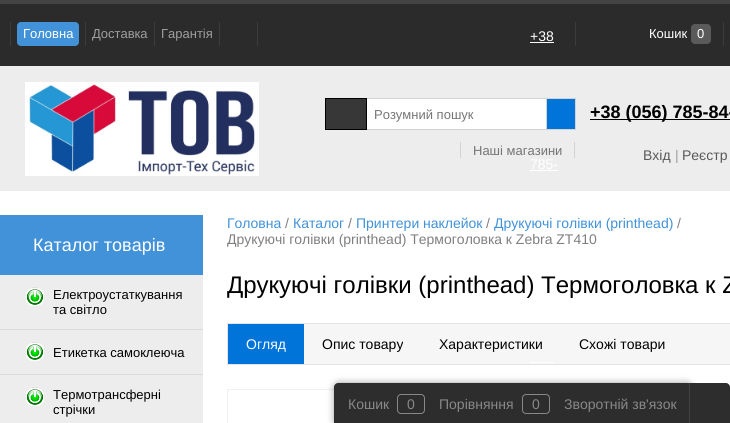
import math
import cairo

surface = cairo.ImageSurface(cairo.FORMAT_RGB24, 730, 423)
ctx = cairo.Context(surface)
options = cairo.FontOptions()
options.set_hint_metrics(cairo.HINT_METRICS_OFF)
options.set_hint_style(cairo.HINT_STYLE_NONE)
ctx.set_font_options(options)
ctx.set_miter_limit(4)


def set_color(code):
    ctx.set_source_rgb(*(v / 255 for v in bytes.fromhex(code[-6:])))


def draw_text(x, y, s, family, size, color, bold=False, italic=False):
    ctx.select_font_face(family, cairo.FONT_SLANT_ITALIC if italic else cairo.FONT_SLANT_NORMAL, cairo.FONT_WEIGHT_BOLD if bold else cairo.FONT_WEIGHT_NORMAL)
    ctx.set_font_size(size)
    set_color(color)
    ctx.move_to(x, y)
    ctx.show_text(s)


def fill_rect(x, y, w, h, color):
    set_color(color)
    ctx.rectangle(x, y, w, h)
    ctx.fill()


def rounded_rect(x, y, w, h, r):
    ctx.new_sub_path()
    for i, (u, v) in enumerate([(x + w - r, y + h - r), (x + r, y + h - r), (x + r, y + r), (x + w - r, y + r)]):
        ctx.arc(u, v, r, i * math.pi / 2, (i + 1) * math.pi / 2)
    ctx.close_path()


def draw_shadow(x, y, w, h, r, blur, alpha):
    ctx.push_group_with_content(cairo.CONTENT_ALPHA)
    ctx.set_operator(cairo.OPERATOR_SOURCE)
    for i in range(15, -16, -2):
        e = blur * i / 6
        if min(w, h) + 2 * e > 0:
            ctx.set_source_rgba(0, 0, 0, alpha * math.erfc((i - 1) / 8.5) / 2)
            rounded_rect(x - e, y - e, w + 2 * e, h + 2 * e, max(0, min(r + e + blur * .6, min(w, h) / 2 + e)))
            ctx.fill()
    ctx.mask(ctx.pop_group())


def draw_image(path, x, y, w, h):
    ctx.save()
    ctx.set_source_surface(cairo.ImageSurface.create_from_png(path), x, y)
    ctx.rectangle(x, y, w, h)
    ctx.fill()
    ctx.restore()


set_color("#ffffff")
ctx.paint()
fill_rect(0, 4, 730, 62, "#2b2b2b")
fill_rect(0, 0, 730, 4, "#444444")
fill_rect(10, 22, 1, 24, "#3c3c3c")
set_color("#4192d9")
rounded_rect(17, 22, 62, 24, 4)
ctx.fill()
draw_text(23, 38, "Головна", "Liberation Sans", 13, "#ffffff")
fill_rect(85, 22, 1, 24, "#3c3c3c")
draw_text(92, 38, "Доставка", "Liberation Sans", 13, "#9e9e9e")
fill_rect(154, 22, 1, 24, "#3c3c3c")
draw_text(161, 38, "Гарантія", "Liberation Sans", 13, "#9e9e9e")
fill_rect(257, 22, 1, 24, "#3c3c3c")
fill_rect(219, 22, 1, 24, "#3c3c3c")
draw_text(530, 41, "+38", "Liberation Sans", 14, "#ffffff")
fill_rect(530, 42, 24, 1, "#ffffff")
fill_rect(0, 66, 730, 125, "#ededed")
draw_text(530, 169, "785-", "Liberation Sans", 14, "#ffffff")
fill_rect(530, 170, 28, 1, "#ffffff")
fill_rect(304, 324, 426, 40, "#f6f6f6")
ctx.rectangle(227.5, 323.5, 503, 41)
set_color("#e4e4e4")
ctx.set_line_width(1)
ctx.stroke()
fill_rect(530, 362, 24, 1, "#ffffff")
fill_rect(723, 22, 1, 24, "#3c3c3c")
fill_rect(575, 22, 1, 24, "#3c3c3c")
draw_text(649, 38, "Кошик", "Liberation Sans", 13, "#ffffff")
set_color("#5a5a5a")
rounded_rect(691, 24, 20, 20, 4)
ctx.fill()
draw_text(697, 38, "0", "Liberation Sans", 13, "#ffffff")
draw_image("assets/img1.png", 25, 82, 234, 94)
fill_rect(367, 99, 179, 30, "#ffffff")
fill_rect(545, 98, 31, 1, "#d3d3d3")
fill_rect(575, 98, 1, 32, "#d3d3d3")
fill_rect(545, 129, 31, 1, "#d3d3d3")
ctx.rectangle(365.5, 98.5, 181, 31)
ctx.stroke()
set_color("#373737")
ctx.rectangle(325.5, 98.5, 41, 31)
ctx.fill_preserve()
set_color("#000000")
ctx.stroke()
draw_text(374, 119, "Розумний пошук", "Liberation Sans", 13, "#757575")
fill_rect(547, 99, 28, 30, "#0074d8")
fill_rect(574, 142, 1, 16, "#d3d3d3")
fill_rect(460, 142, 1, 16, "#d3d3d3")
draw_text(473, 155, "Наші магазини", "Liberation Sans", 13, "#757575")
fill_rect(590, 119, 140, 1, "#000000")
draw_text(590, 118, "+38 (056) 785-84-", "Liberation Sans", 18, "#000000", bold=True)
draw_text(643, 160, "Вхід", "Liberation Sans", 14, "#595959")
draw_text(675, 160, "|", "Liberation Sans", 14, "#9e9e9e")
draw_text(682, 160, "Реєстр", "Liberation Sans", 14, "#595959")
fill_rect(0, 275, 203, 148, "#ededed")
fill_rect(0, 215, 203, 60, "#4192d9")
draw_text(33, 251, "Каталог товарів", "Liberation Sans", 18, "#ffffff")
fill_rect(0, 329, 203, 1, "#dbdbdb")
draw_image("assets/img2.png", 26, 287, 18, 19)
draw_text(53, 299, "Електроустаткування", "Liberation Sans", 13, "#000000")
draw_text(53, 314, "та світло", "Liberation Sans", 13, "#000000")
fill_rect(0, 374, 203, 1, "#dbdbdb")
draw_image("assets/img2.png", 26, 342, 18, 19)
draw_text(53, 357, "Етикетка самоклеюча", "Liberation Sans", 13, "#000000")
draw_image("assets/img2.png", 26, 387, 18, 19)
draw_text(53, 399, "Термотрансферні", "Liberation Sans", 13, "#000000")
draw_text(53, 414, "стрічки", "Liberation Sans", 13, "#000000")
draw_text(227, 228, "Головна", "Liberation Sans", 14, "#4192d9")
draw_text(285, 228, "/", "Liberation Sans", 14, "#7f7f7f")
draw_text(293, 228, "Каталог", "Liberation Sans", 14, "#4192d9")
draw_text(348, 228, "/", "Liberation Sans", 14, "#7f7f7f")
draw_text(356, 228, "Принтери наклейок", "Liberation Sans", 14, "#4192d9")
draw_text(486, 228, "/", "Liberation Sans", 14, "#7f7f7f")
draw_text(494, 228, "Друкуючі голівки (printhead)", "Liberation Sans", 14, "#4192d9")
draw_text(677, 228, "/", "Liberation Sans", 14, "#7f7f7f")
ctx.save()
ctx.rectangle(227, 215, 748, 32)
ctx.clip()
draw_text(227, 244, "Друкуючі голівки (printhead) Термоголовка к Zebra ZT410", "Liberation Sans", 14, "#7f7f7f")
ctx.restore()
draw_text(227, 293, "Друкуючі голівки (printhead) Термоголовка к Z", "Liberation Sans", 24, "#000000")
fill_rect(228, 324, 76, 40, "#0074d8")
draw_text(246, 349, "Огляд", "Liberation Sans", 14, "#ffffff")
draw_text(322, 349, "Опис товару", "Liberation Sans", 14, "#000000")
draw_text(439, 349, "Характеристики", "Liberation Sans", 14, "#000000")
draw_text(579, 349, "Схожі товари", "Liberation Sans", 14, "#000000")
ctx.rectangle(227.5, 389.5, 298, 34)
set_color("#f1f1f1")
ctx.stroke()
set_color("#000000")
draw_shadow(335, 384, 356, 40, 4, 4, 0.5)
set_color("#2d2d2d")
ctx.new_path()
ctx.move_to(338, 383)
ctx.line_to(690, 383)
ctx.line_to(690, 423)
ctx.line_to(334, 423)
ctx.line_to(334, 387)
ctx.curve_to(334, 385, 336, 383, 338, 383)
ctx.close_path()
ctx.fill()
draw_text(348, 409, "Кошик", "Liberation Sans", 14, "#888888")
rounded_rect(397.5, 394.5, 27, 19, 3.5)
ctx.stroke()
draw_text(407, 409, "0", "Liberation Sans", 14, "#888888")
draw_text(439, 409, "Порівняння", "Liberation Sans", 14, "#888888")
rounded_rect(522.5, 394.5, 27, 19, 3.5)
ctx.stroke()
draw_text(532, 409, "0", "Liberation Sans", 14, "#888888")
draw_text(564, 409, "Зворотній зв'язок", "Liberation Sans", 14, "#888888")
set_color("#2d2d2d")
ctx.new_path()
ctx.move_to(689, 383)
ctx.line_to(726, 383)
ctx.curve_to(728, 383, 730, 385, 730, 387)
ctx.line_to(730, 423)
ctx.line_to(689, 423)
ctx.close_path()
ctx.fill()
fill_rect(689, 383, 1, 40, "#414141")
surface.write_to_png("output.png")
